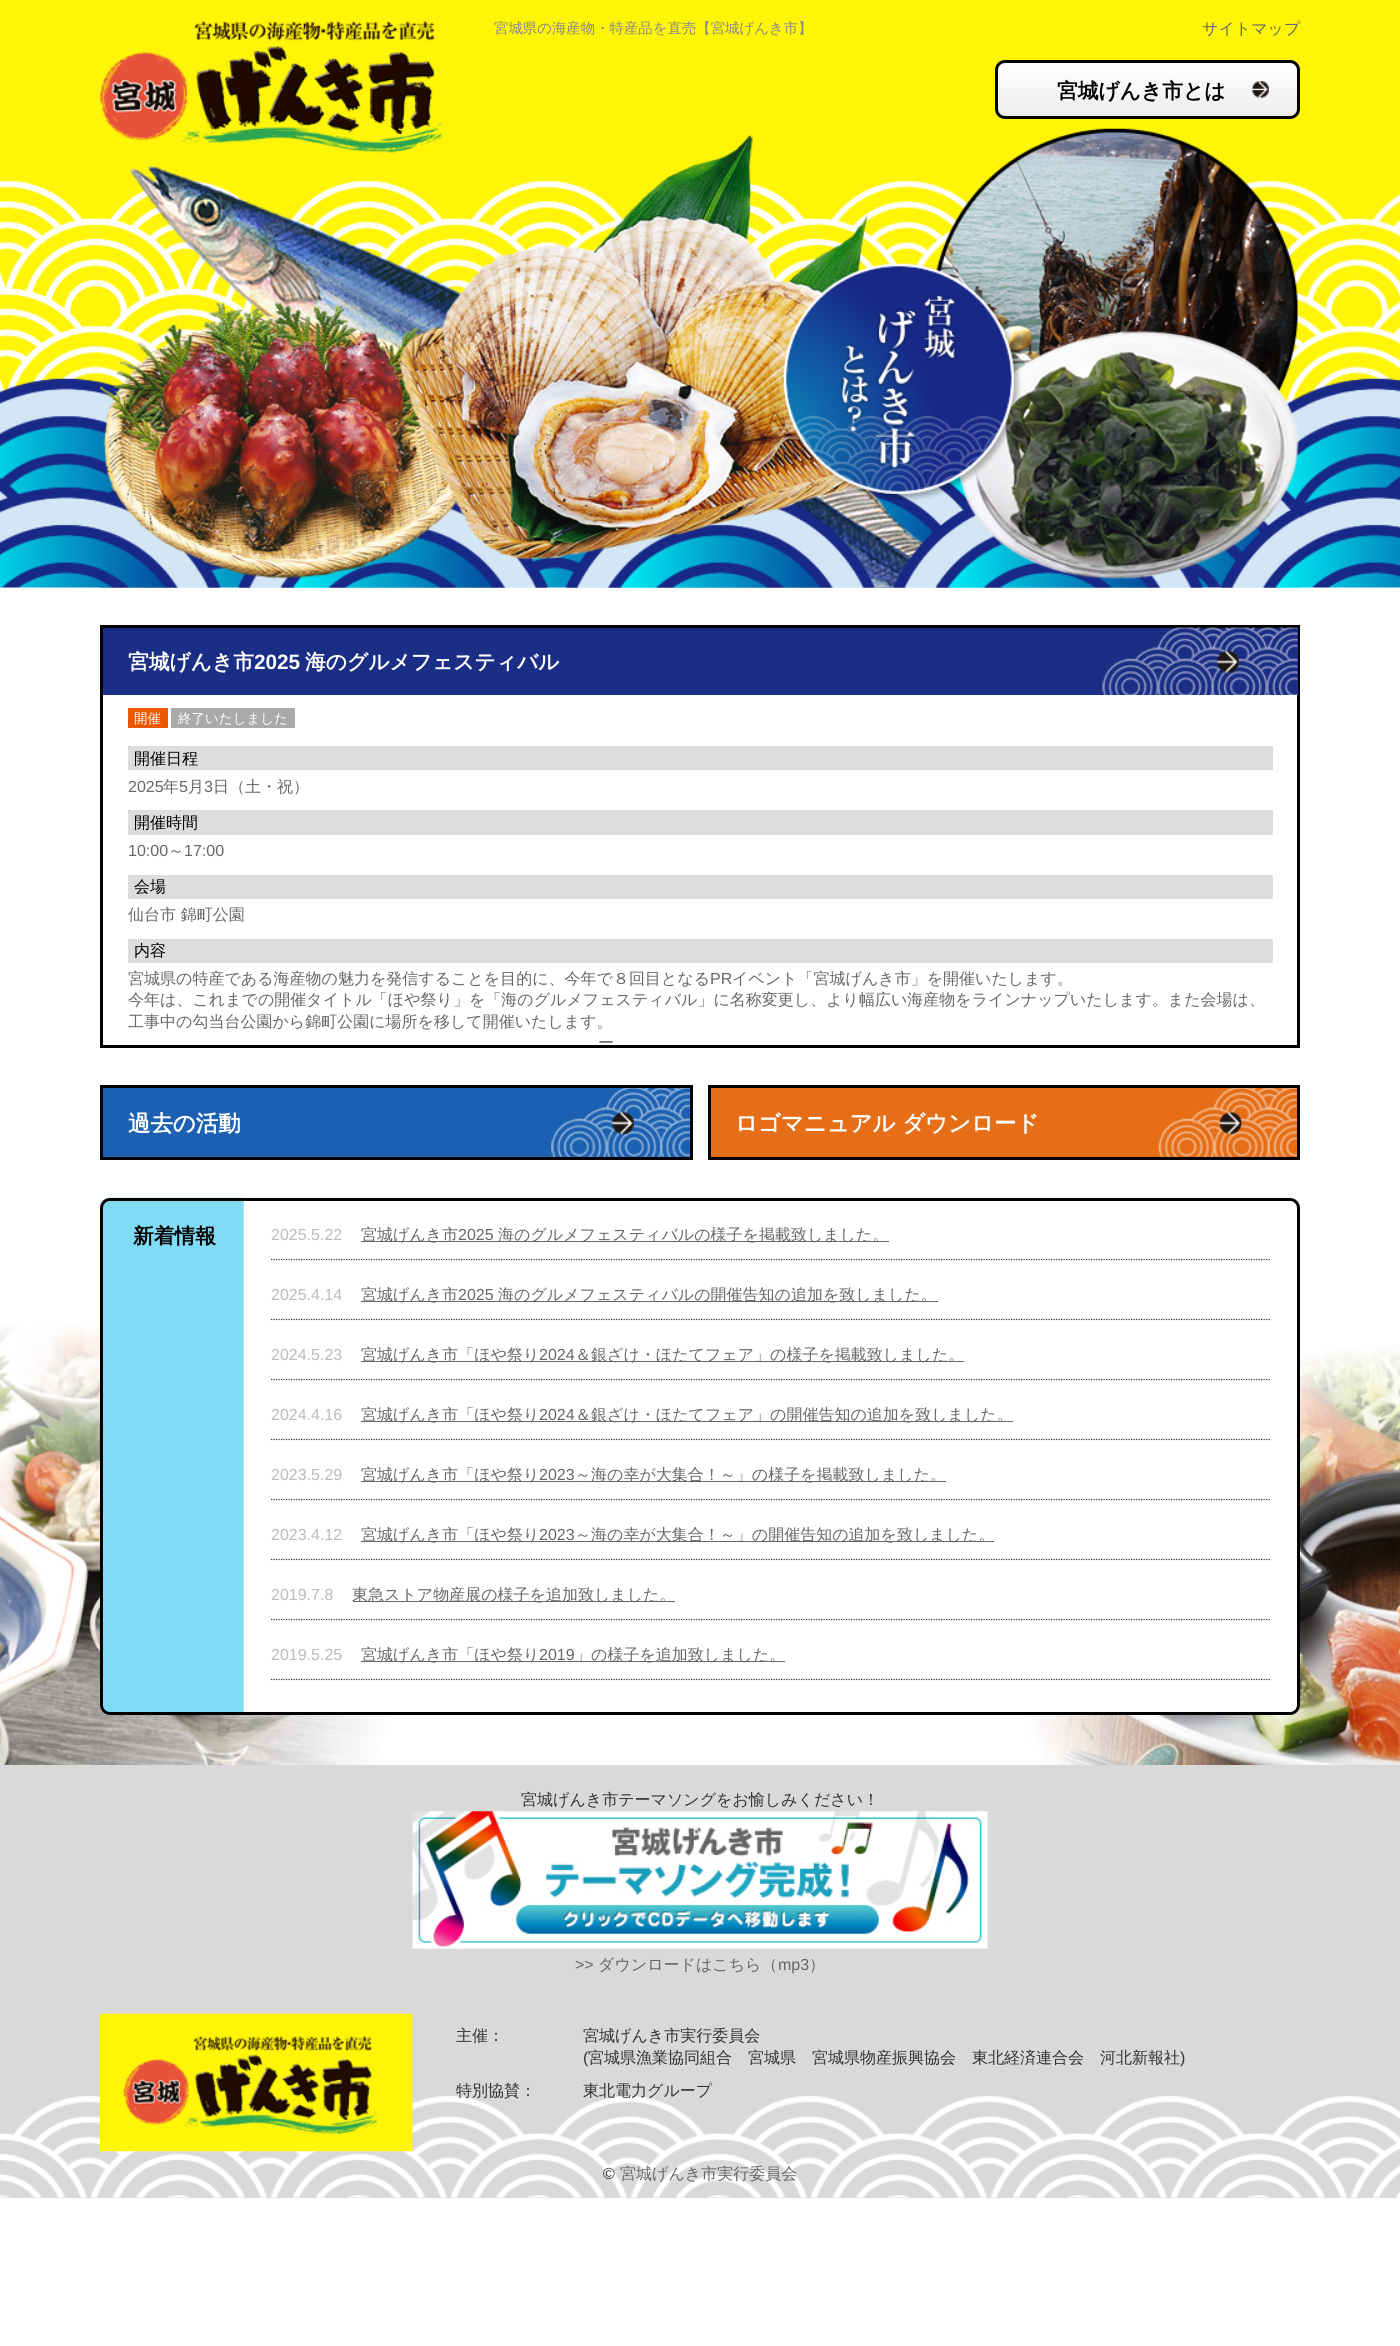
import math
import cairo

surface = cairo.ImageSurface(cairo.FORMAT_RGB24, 1400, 2346)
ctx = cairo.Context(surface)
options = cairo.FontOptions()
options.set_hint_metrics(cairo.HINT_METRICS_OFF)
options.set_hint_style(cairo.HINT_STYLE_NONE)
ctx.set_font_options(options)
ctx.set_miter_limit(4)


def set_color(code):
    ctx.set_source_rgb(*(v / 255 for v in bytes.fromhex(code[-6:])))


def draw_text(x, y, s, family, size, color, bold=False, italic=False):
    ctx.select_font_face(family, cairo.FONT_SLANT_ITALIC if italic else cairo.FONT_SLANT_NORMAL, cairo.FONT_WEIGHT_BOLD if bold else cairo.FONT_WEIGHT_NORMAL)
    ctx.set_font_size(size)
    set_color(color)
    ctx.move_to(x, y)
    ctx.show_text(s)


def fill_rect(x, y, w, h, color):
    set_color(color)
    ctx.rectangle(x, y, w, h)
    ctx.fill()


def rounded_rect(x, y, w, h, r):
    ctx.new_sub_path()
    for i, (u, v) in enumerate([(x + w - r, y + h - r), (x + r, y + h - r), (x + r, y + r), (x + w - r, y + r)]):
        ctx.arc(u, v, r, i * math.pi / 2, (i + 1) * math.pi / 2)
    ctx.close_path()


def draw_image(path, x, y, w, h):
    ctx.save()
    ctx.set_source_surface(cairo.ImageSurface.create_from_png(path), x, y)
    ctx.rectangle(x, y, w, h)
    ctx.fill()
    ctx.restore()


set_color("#ffffff")
ctx.paint()
draw_image("assets/img1.png", 0, 0, 1400, 588)
draw_image("assets/img2.png", 100, 21, 343, 132)
draw_text(494, 33, "宮城県の海産物・特産品を直売【宮城げんき市】", "WenQuanYi Zen Hei Medium", 14.4, "#888888")
draw_text(1202, 34, "サイトマップ", "WenQuanYi Zen Hei Medium", 16, "#666666")
draw_image("assets/img3.png", 995, 60, 305, 59)
rounded_rect(996.5, 61.5, 302, 56, 8.5)
set_color("#000000")
ctx.set_line_width(3)
ctx.stroke()
draw_text(1057, 98, "宮城げんき市とは", "WenQuanYi Zen Hei", 20.75, "#000000", bold=True)
draw_image("assets/img4.png", 100, 128, 1200, 460)
draw_image("assets/img5.png", 783, 263, 238, 238)
draw_image("assets/img6.png", 0, 1325, 1400, 440)
ctx.rectangle(101.5, 626.5, 1197, 420)
ctx.stroke()
fill_rect(103, 628, 1195, 67, "#192e84")
draw_image("assets/img7.png", 1102, 627, 196, 68)
draw_image("assets/img8.png", 1217, 651, 22, 22)
draw_text(128, 669, "宮城げんき市", "WenQuanYi Zen Hei", 20.75, "#ffffff", bold=True)
draw_text(254, 669, "2025", "Liberation Sans", 20.75, "#ffffff", bold=True)
draw_text(305, 669, "海のグルメフェスティバル", "WenQuanYi Zen Hei", 20.75, "#ffffff", bold=True)
fill_rect(128, 708, 40, 20, "#ea5803")
draw_text(134, 723, "開催", "WenQuanYi Zen Hei Medium", 13.5, "#ffffff")
fill_rect(171, 708, 124, 20, "#aaaaaa")
draw_text(178, 723, "終了いたしました", "WenQuanYi Zen Hei Medium", 13.5, "#ffffff")
fill_rect(128, 746, 1145, 24, "#dddddd")
draw_text(134, 764, "開催日程", "WenQuanYi Zen Hei Medium", 16, "#000000")
draw_text(128, 792, "2025", "Liberation Sans", 16, "#666666")
draw_text(163, 792, "年", "WenQuanYi Zen Hei Medium", 16, "#666666")
draw_text(179, 792, "5", "Liberation Sans", 16, "#666666")
draw_text(188, 792, "月", "WenQuanYi Zen Hei Medium", 16, "#666666")
draw_text(204, 792, "3", "Liberation Sans", 16, "#666666")
draw_text(213, 792, "日（土・祝）", "WenQuanYi Zen Hei Medium", 16, "#666666")
fill_rect(128, 810, 1145, 25, "#dddddd")
draw_text(134, 828, "開催時間", "WenQuanYi Zen Hei Medium", 16, "#000000")
draw_text(128, 856, "10:00", "Liberation Sans", 16, "#666666")
draw_text(168, 856, "～", "WenQuanYi Zen Hei Medium", 16, "#666666")
draw_text(184, 856, "17:00", "Liberation Sans", 16, "#666666")
fill_rect(128, 875, 1145, 24, "#dddddd")
draw_text(134, 892, "会場", "WenQuanYi Zen Hei Medium", 16, "#000000")
draw_text(128, 920, "仙台市 錦町公園", "WenQuanYi Zen Hei Medium", 16, "#666666")
fill_rect(128, 939, 1145, 24, "#dddddd")
draw_text(134, 956, "内容", "WenQuanYi Zen Hei Medium", 16, "#000000")
draw_text(128, 984, "宮城県の特産である海産物の魅力を発信することを目的に、今年で８回目となる", "WenQuanYi Zen Hei Medium", 16, "#666666")
draw_text(710, 984, "PR", "Liberation Sans", 16, "#666666")
draw_text(732, 984, "イベント「宮城げんき市」を開催いたします。", "WenQuanYi Zen Hei Medium", 16, "#666666")
draw_text(128, 1005, "今年は、これまでの開催タイトル「ほや祭り」を「海のグルメフェスティバル」に名称変更し、より幅広い海産物をラインナップいたします。また会場は、", "WenQuanYi Zen Hei Medium", 16, "#666666")
draw_text(128, 1027, "工事中の勾当台公園から錦町公園に場所を移して開催いたします。", "WenQuanYi Zen Hei Medium", 16, "#666666")
draw_text(598, 1048, "ー", "WenQuanYi Zen Hei Medium", 16, "#666666")
fill_rect(103, 1088, 587, 69, "#1c61b1")
draw_image("assets/img9.png", 551, 1088, 139, 69)
ctx.rectangle(101.5, 1086.5, 590, 72)
set_color("#000000")
ctx.stroke()
draw_image("assets/img10.png", 612, 1112, 22, 22)
draw_text(128, 1131, "過去の活動", "WenQuanYi Zen Hei", 22.4, "#ffffff", bold=True)
fill_rect(711, 1088, 586, 69, "#e56e16")
draw_image("assets/img11.png", 1158, 1088, 139, 69)
ctx.rectangle(709.5, 1086.5, 589, 72)
set_color("#000000")
ctx.stroke()
draw_image("assets/img12.png", 1220, 1112, 22, 22)
draw_text(735, 1131, "ロゴマニュアル ダウンロード", "WenQuanYi Zen Hei", 22.4, "#ffffff", bold=True)
rounded_rect(100, 1198, 1200, 517, 10)
ctx.fill()
draw_image("assets/img13.png", 102, 1197, 142, 518)
rounded_rect(101.5, 1199.5, 1197, 514, 8.5)
set_color("#000000")
ctx.stroke()
draw_text(133, 1243, "新着情報", "WenQuanYi Zen Hei", 20.75, "#000000", bold=True)
ctx.new_path()
ctx.move_to(271, 1259.5)
ctx.line_to(1271, 1259.5)
set_color("#333333")
ctx.set_line_width(1.2)
ctx.set_dash([1.25, 1.25])
ctx.stroke()
draw_text(271, 1240, "2025.5.22", "Liberation Sans", 16, "#bbbbbb")
fill_rect(361, 1241, 528, 1, "#666666")
draw_text(361, 1240, "宮城げんき市", "WenQuanYi Zen Hei Medium", 16, "#666666")
draw_text(458, 1240, "2025", "Liberation Sans", 16, "#666666")
draw_text(498, 1240, "海のグルメフェスティバルの様子を掲載致しました。", "WenQuanYi Zen Hei Medium", 16, "#666666")
ctx.new_path()
ctx.move_to(271, 1319.5)
ctx.line_to(1271, 1319.5)
set_color("#333333")
ctx.stroke()
draw_text(271, 1300, "2025.4.14", "Liberation Sans", 16, "#bbbbbb")
fill_rect(361, 1301, 577, 1, "#666666")
draw_text(361, 1300, "宮城げんき市", "WenQuanYi Zen Hei Medium", 16, "#666666")
draw_text(458, 1300, "2025", "Liberation Sans", 16, "#666666")
draw_text(498, 1300, "海のグルメフェスティバルの開催告知の追加を致しました。", "WenQuanYi Zen Hei Medium", 16, "#666666")
ctx.new_path()
ctx.move_to(271, 1379.5)
ctx.line_to(1271, 1379.5)
set_color("#333333")
ctx.stroke()
draw_text(271, 1360, "2024.5.23", "Liberation Sans", 16, "#bbbbbb")
fill_rect(361, 1361, 603, 1, "#666666")
draw_text(361, 1360, "宮城げんき市「ほや祭り", "WenQuanYi Zen Hei Medium", 16, "#666666")
draw_text(539, 1360, "2024", "Liberation Sans", 16, "#666666")
draw_text(575, 1360, "＆銀ざけ・ほたてフェア」の様子を掲載致しました。", "WenQuanYi Zen Hei Medium", 16, "#666666")
ctx.new_path()
ctx.move_to(271, 1439.5)
ctx.line_to(1271, 1439.5)
set_color("#333333")
ctx.stroke()
draw_text(271, 1420, "2024.4.16", "Liberation Sans", 16, "#bbbbbb")
fill_rect(361, 1421, 652, 1, "#666666")
draw_text(361, 1420, "宮城げんき市「ほや祭り", "WenQuanYi Zen Hei Medium", 16, "#666666")
draw_text(539, 1420, "2024", "Liberation Sans", 16, "#666666")
draw_text(575, 1420, "＆銀ざけ・ほたてフェア」の開催告知の追加を致しました。", "WenQuanYi Zen Hei Medium", 16, "#666666")
ctx.new_path()
ctx.move_to(271, 1499.5)
ctx.line_to(1271, 1499.5)
set_color("#333333")
ctx.stroke()
draw_text(271, 1480, "2023.5.29", "Liberation Sans", 16, "#bbbbbb")
fill_rect(361, 1481, 585, 1, "#666666")
draw_text(361, 1480, "宮城げんき市「ほや祭り", "WenQuanYi Zen Hei Medium", 16, "#666666")
draw_text(539, 1480, "2023", "Liberation Sans", 16, "#666666")
draw_text(575, 1480, "～海の幸が大集合！～」の様子を掲載致しました。", "WenQuanYi Zen Hei Medium", 16, "#666666")
ctx.new_path()
ctx.move_to(271, 1559.5)
ctx.line_to(1271, 1559.5)
set_color("#333333")
ctx.stroke()
draw_text(271, 1540, "2023.4.12", "Liberation Sans", 16, "#bbbbbb")
fill_rect(361, 1541, 633, 1, "#666666")
draw_text(361, 1540, "宮城げんき市「ほや祭り", "WenQuanYi Zen Hei Medium", 16, "#666666")
draw_text(539, 1540, "2023", "Liberation Sans", 16, "#666666")
draw_text(575, 1540, "～海の幸が大集合！～」の開催告知の追加を致しました。", "WenQuanYi Zen Hei Medium", 16, "#666666")
ctx.new_path()
ctx.move_to(271, 1619.5)
ctx.line_to(1271, 1619.5)
set_color("#333333")
ctx.stroke()
draw_text(271, 1600, "2019.7.8", "Liberation Sans", 16, "#bbbbbb")
fill_rect(353, 1601, 322, 1, "#666666")
draw_text(352, 1600, "東急ストア物産展の様子を追加致しました。", "WenQuanYi Zen Hei Medium", 16, "#666666")
ctx.new_path()
ctx.move_to(271, 1679.5)
ctx.line_to(1271, 1679.5)
set_color("#333333")
ctx.stroke()
draw_text(271, 1660, "2019.5.25", "Liberation Sans", 16, "#bbbbbb")
fill_rect(361, 1661, 424, 1, "#666666")
draw_text(361, 1660, "宮城げんき市「ほや祭り", "WenQuanYi Zen Hei Medium", 16, "#666666")
draw_text(539, 1660, "2019", "Liberation Sans", 16, "#666666")
draw_text(575, 1660, "」の様子を追加致しました。", "WenQuanYi Zen Hei Medium", 16, "#666666")
fill_rect(0, 1765, 1400, 433, "#d9d9d9")
draw_image("assets/img14.png", 0, 2096, 1400, 102)
draw_text(521, 1805, "宮城げんき市テーマソングをお愉しみください！", "WenQuanYi Zen Hei Medium", 16, "#333333")
draw_image("assets/img15.png", 412, 1811, 576, 138)
draw_text(575, 1970, ">>", "Liberation Sans", 16, "#666666")
draw_text(598, 1970, "ダウンロードはこちら（", "WenQuanYi Zen Hei Medium", 16, "#666666")
draw_text(778, 1970, "mp3", "Liberation Sans", 16, "#666666")
draw_text(809, 1970, "）", "WenQuanYi Zen Hei Medium", 16, "#666666")
draw_image("assets/img16.png", 100, 2013, 313, 139)
draw_text(456, 2041, "主催：", "WenQuanYi Zen Hei Medium", 16, "#333333")
draw_text(583, 2041, "宮城げんき市実行委員会", "WenQuanYi Zen Hei Medium", 16, "#333333")
draw_text(583, 2063, "(", "Liberation Sans", 16, "#333333")
draw_text(588, 2063, "宮城県漁業協同組合　宮城県　宮城県物産振興協会　東北経済連合会　河北新報社", "WenQuanYi Zen Hei Medium", 16, "#333333")
draw_text(1180, 2063, ")", "Liberation Sans", 16, "#333333")
draw_text(456, 2096, "特別協賛：", "WenQuanYi Zen Hei Medium", 16, "#333333")
draw_text(583, 2096, "東北電力グループ", "WenQuanYi Zen Hei Medium", 16, "#333333")
draw_text(603, 2179, "©", "Liberation Sans", 16, "#333333")
draw_text(620, 2179, "宮城げんき市実行委員会", "WenQuanYi Zen Hei Medium", 16, "#666666")
surface.write_to_png("output.png")
